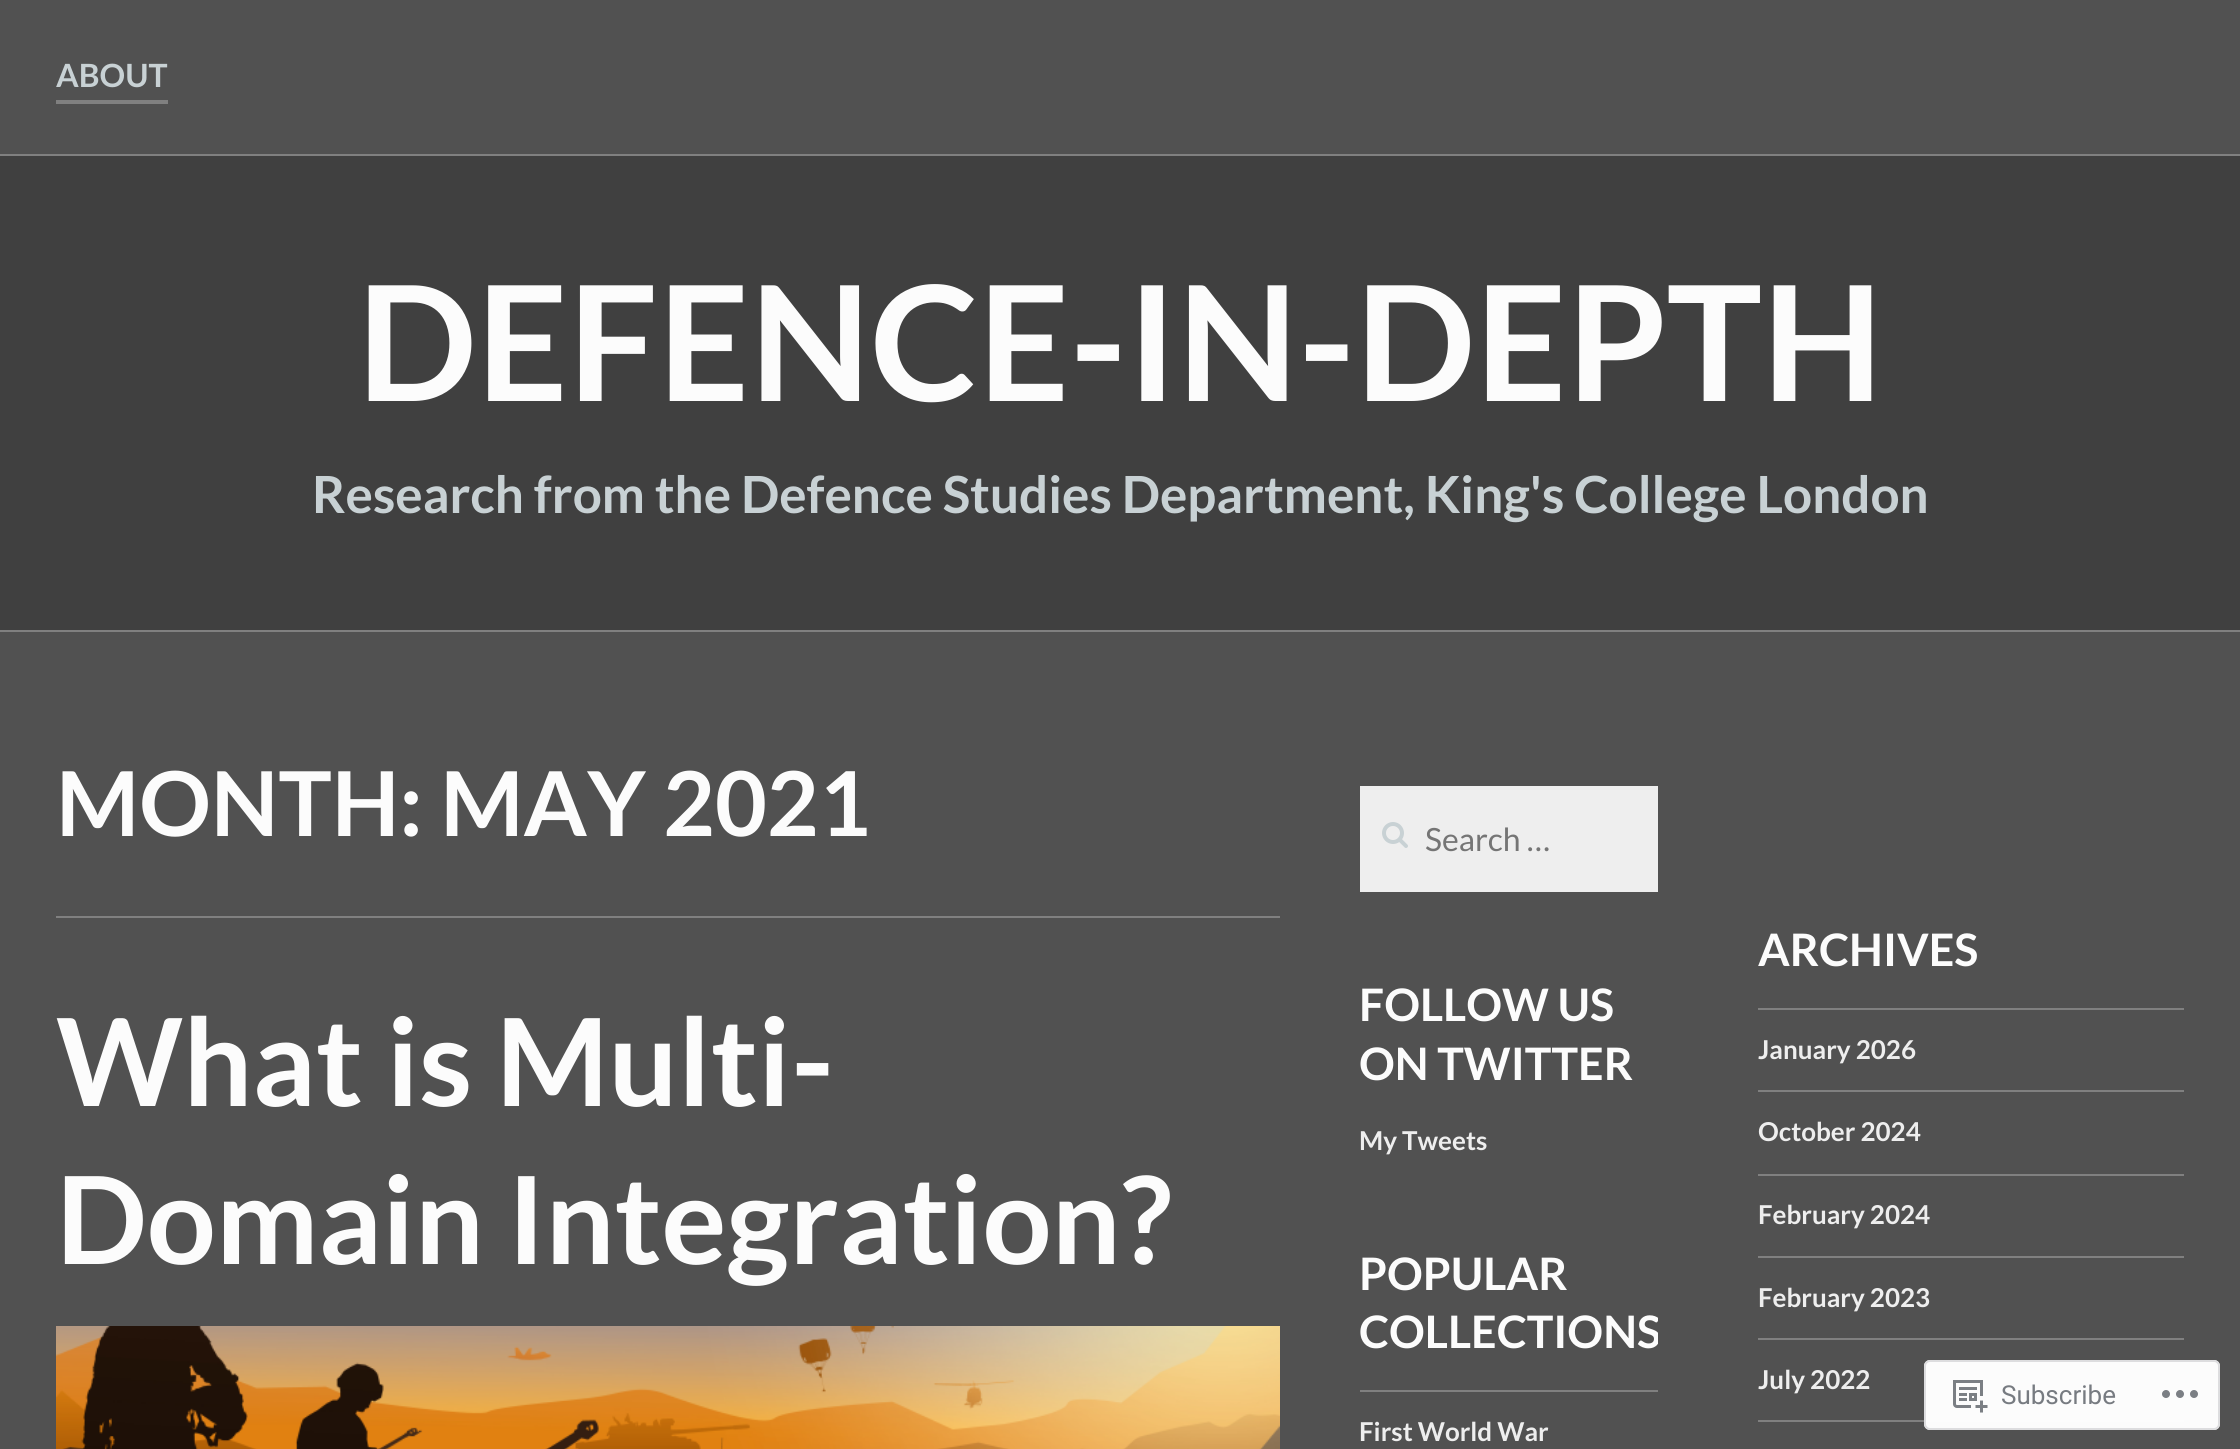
import math
import cairo

surface = cairo.ImageSurface(cairo.FORMAT_RGB24, 2240, 1449)
ctx = cairo.Context(surface)
options = cairo.FontOptions()
options.set_hint_metrics(cairo.HINT_METRICS_OFF)
options.set_hint_style(cairo.HINT_STYLE_NONE)
ctx.set_font_options(options)
ctx.set_miter_limit(4)


def set_color(code):
    ctx.set_source_rgb(*(v / 255 for v in bytes.fromhex(code[-6:])))


def draw_text(x, y, s, family, size, color, bold=False, italic=False):
    ctx.select_font_face(family, cairo.FONT_SLANT_ITALIC if italic else cairo.FONT_SLANT_NORMAL, cairo.FONT_WEIGHT_BOLD if bold else cairo.FONT_WEIGHT_NORMAL)
    ctx.set_font_size(size)
    set_color(color)
    ctx.move_to(x, y)
    ctx.show_text(s)


def fill_rect(x, y, w, h, color):
    set_color(color)
    ctx.rectangle(x, y, w, h)
    ctx.fill()


def rounded_rect(x, y, w, h, r):
    ctx.new_sub_path()
    for i, (u, v) in enumerate([(x + w - r, y + h - r), (x + r, y + h - r), (x + r, y + r), (x + w - r, y + r)]):
        ctx.arc(u, v, r, i * math.pi / 2, (i + 1) * math.pi / 2)
    ctx.close_path()


def draw_image(path, x, y, w, h):
    ctx.save()
    ctx.set_source_surface(cairo.ImageSurface.create_from_png(path), x, y)
    ctx.rectangle(x, y, w, h)
    ctx.fill()
    ctx.restore()


set_color("#515151")
ctx.paint()
fill_rect(0, 154, 2240, 2, "#808080")
fill_rect(56, 100, 112, 4, "#808080")
draw_text(56, 87, "ABOUT", "Lato", 32, "#c8d1d4", bold=True)
fill_rect(0, 156, 2240, 474, "#404040")
draw_text(357, 401, "DEFENCE-IN-DEPTH", "Lato", 160, "#fcfcfc", bold=True)
draw_text(312, 513, "Research from the Defence Studies Department, King's College London", "Lato", 51.2, "#c8d1d4", bold=True)
fill_rect(0, 630, 2240, 2, "#808080")
fill_rect(56, 916, 1224, 2, "#808080")
draw_text(56, 836, "MONTH: MAY 2021", "Lato", 89.5, "#fcfcfc", bold=True)
draw_text(56, 1106, "What is Multi-", "Lato", 121.5, "#fcfcfc", bold=True)
draw_text(56, 1264, "Domain Integration?", "Lato", 121.5, "#fcfcfc", bold=True)
draw_image("assets/img1.png", 56, 1326, 1224, 123)
fill_rect(1360, 786, 298, 106, "#eeeeee")
draw_image("assets/img2.png", 1382, 822, 26, 26)
draw_text(1425, 851, "Search …", "Lato", 32, "#757575")
draw_text(1359, 1021, "FOLLOW US", "Lato", 44.75, "#fcfcfc", bold=True)
draw_text(1359, 1080, "ON TWITTER", "Lato", 44.75, "#fcfcfc", bold=True)
draw_text(1359, 1150, "My Tweets", "Lato", 26, "#eeeeee", bold=True)
draw_text(1359, 1290, "POPULAR", "Lato", 44.75, "#fcfcfc", bold=True)
ctx.save()
ctx.rectangle(1360, 786, 298, 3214)
ctx.clip()
draw_text(1359, 1348, "COLLECTIONS", "Lato", 44.75, "#fcfcfc", bold=True)
ctx.restore()
fill_rect(1360, 1390, 298, 2, "#808080")
draw_text(1359, 1441, "First World War", "Lato", 26, "#eeeeee", bold=True)
draw_text(1758, 966, "ARCHIVES", "Lato", 44.75, "#fcfcfc", bold=True)
fill_rect(1758, 1008, 426, 2, "#808080")
draw_text(1758, 1059, "January 2026", "Lato", 26, "#eeeeee", bold=True)
fill_rect(1758, 1090, 426, 2, "#808080")
draw_text(1758, 1141, "October 2024", "Lato", 26, "#eeeeee", bold=True)
fill_rect(1758, 1174, 426, 2, "#808080")
draw_text(1758, 1224, "February 2024", "Lato", 26, "#eeeeee", bold=True)
fill_rect(1758, 1256, 426, 2, "#808080")
draw_text(1758, 1307, "February 2023", "Lato", 26, "#eeeeee", bold=True)
fill_rect(1758, 1338, 426, 2, "#808080")
draw_text(1758, 1389, "July 2022", "Lato", 26, "#eeeeee", bold=True)
fill_rect(1758, 1420, 426, 2, "#808080")
ctx.set_source_rgba(1, 1, 1, 0.98)
rounded_rect(1924, 1360, 296, 70, 6)
ctx.fill()
rounded_rect(1925, 1361, 294, 68, 5)
ctx.set_source_rgba(0.863, 0.863, 0.871, 0.98)
ctx.stroke()
draw_image("assets/img3.png", 1953, 1380, 35, 33)
draw_text(2001, 1404, "Subscribe", "Roboto", 26, "#777b81")
draw_image("assets/img4.png", 2162, 1390, 36, 8)
surface.write_to_png("output.png")
